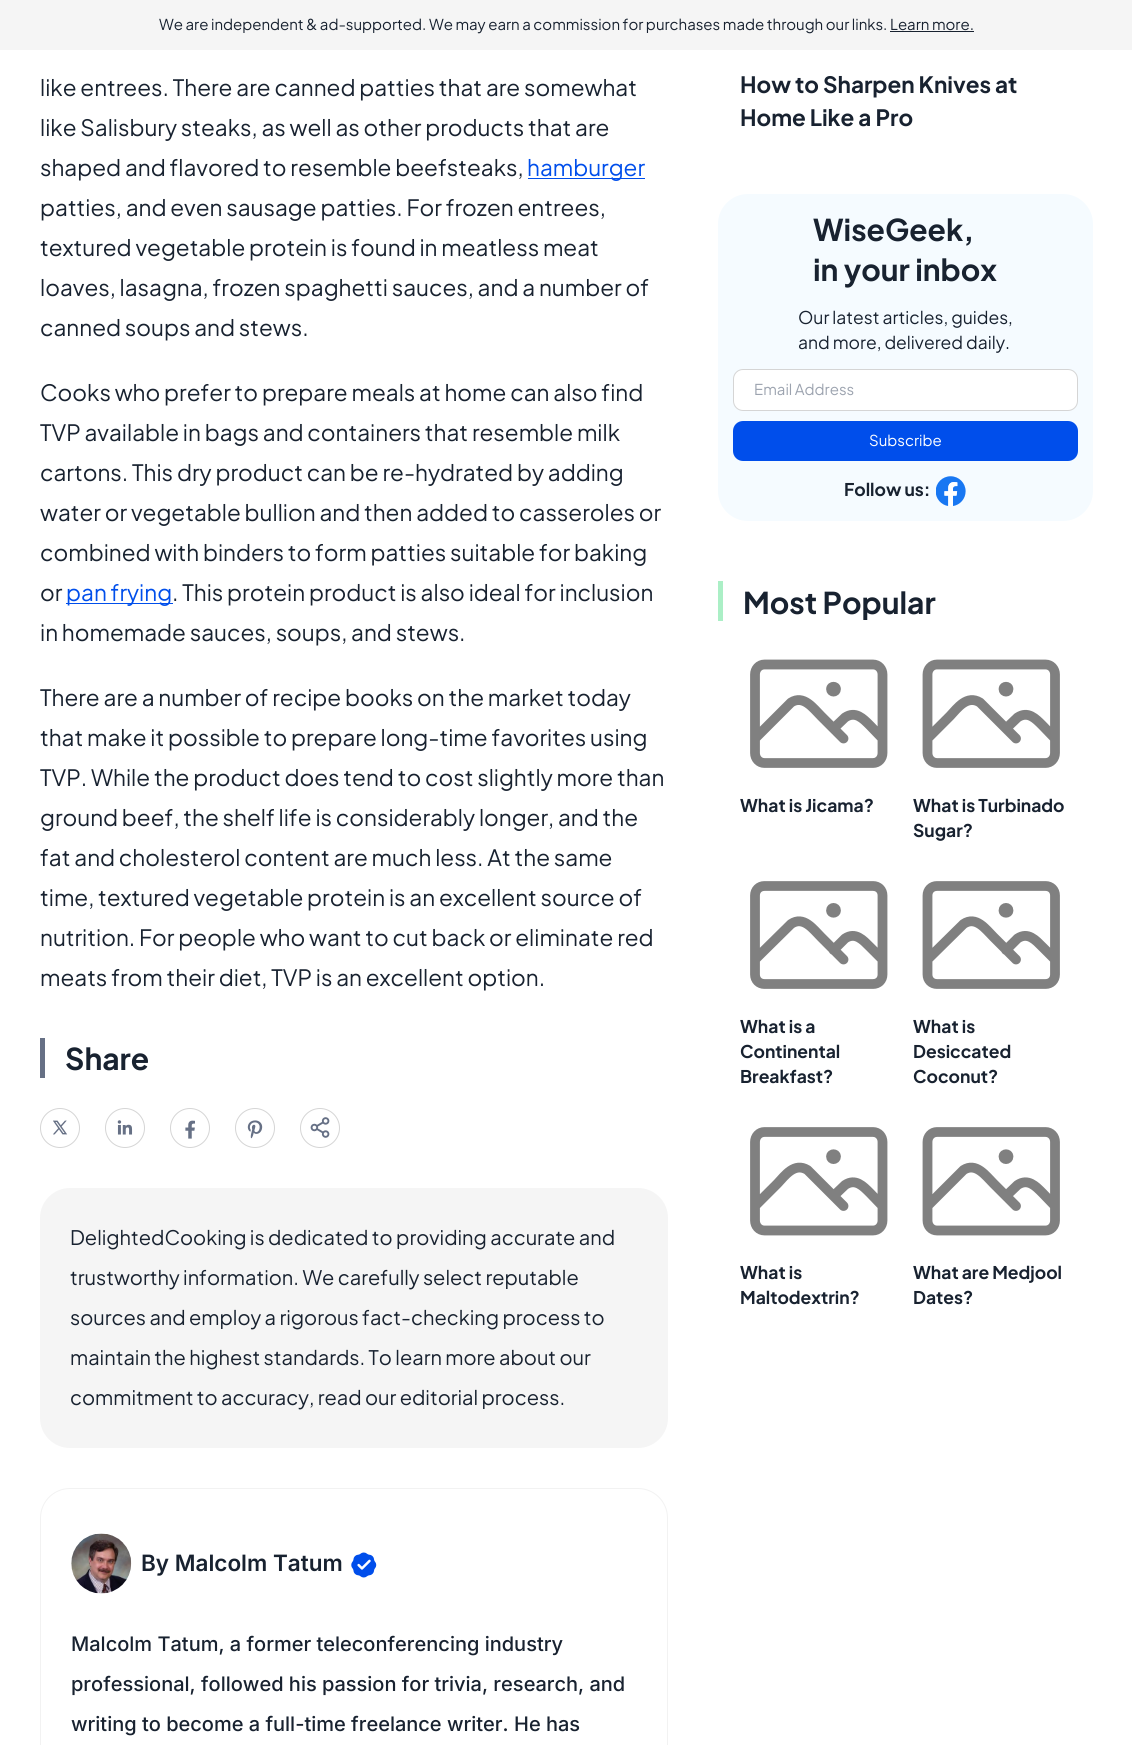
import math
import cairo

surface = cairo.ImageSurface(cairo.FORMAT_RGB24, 1132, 1745)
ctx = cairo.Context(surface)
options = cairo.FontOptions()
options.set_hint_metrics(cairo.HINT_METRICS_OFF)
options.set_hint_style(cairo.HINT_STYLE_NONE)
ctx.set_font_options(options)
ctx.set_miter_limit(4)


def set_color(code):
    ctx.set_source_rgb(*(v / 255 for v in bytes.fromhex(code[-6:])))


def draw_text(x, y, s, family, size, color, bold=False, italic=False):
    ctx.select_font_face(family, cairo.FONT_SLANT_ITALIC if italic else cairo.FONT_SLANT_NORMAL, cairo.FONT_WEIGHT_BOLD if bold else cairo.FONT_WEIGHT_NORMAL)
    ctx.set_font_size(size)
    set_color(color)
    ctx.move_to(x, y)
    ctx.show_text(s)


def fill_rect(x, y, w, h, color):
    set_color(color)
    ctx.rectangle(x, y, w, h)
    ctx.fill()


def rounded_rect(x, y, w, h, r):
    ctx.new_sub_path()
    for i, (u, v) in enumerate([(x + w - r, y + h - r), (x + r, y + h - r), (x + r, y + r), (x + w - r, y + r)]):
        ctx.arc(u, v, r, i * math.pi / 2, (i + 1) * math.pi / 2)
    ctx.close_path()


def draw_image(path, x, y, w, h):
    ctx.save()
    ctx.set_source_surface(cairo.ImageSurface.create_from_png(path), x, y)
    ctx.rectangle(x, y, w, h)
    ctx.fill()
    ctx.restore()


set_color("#ffffff")
ctx.paint()
fill_rect(0, 0, 1132, 50, "#f5f5f5")
draw_text(159, 30, "We are independent & ad-supported. We may earn a commission for purchases made through our links. Learn more.", "Plus Jakarta Sans", 15, "#182230")
fill_rect(890, 31, 84, 1, "#182230")
draw_text(40, 96, "like entrees. There are canned patties that are somewhat", "Plus Jakarta Sans", 22.5, "#182230")
draw_text(40, 136, "like Salisbury steaks, as well as other products that are", "Plus Jakarta Sans", 22.5, "#182230")
draw_text(40, 176, "shaped and flavored to resemble beefsteaks,", "Plus Jakarta Sans", 22.5, "#182230")
fill_rect(528, 178, 117, 1, "#004eeb")
draw_text(527, 176, "hamburger", "Plus Jakarta Sans", 22.5, "#004eeb")
draw_text(40, 216, "patties, and even sausage patties. For frozen entrees,", "Plus Jakarta Sans", 22.5, "#182230")
draw_text(40, 256, "textured vegetable protein is found in meatless meat", "Plus Jakarta Sans", 22.5, "#182230")
draw_text(40, 296, "loaves, lasagna, frozen spaghetti sauces, and a number of", "Plus Jakarta Sans", 22.5, "#182230")
draw_text(40, 336, "canned soups and stews.", "Plus Jakarta Sans", 22.5, "#182230")
draw_text(40, 401, "Cooks who prefer to prepare meals at home can also find", "Plus Jakarta Sans", 22.5, "#182230")
draw_text(40, 441, "TVP available in bags and containers that resemble milk", "Plus Jakarta Sans", 22.5, "#182230")
draw_text(40, 481, "cartons. This dry product can be re-hydrated by adding", "Plus Jakarta Sans", 22.5, "#182230")
draw_text(40, 521, "water or vegetable bullion and then added to casseroles or", "Plus Jakarta Sans", 22.5, "#182230")
draw_text(40, 561, "combined with binders to form patties suitable for baking", "Plus Jakarta Sans", 22.5, "#182230")
draw_text(40, 601, "or", "Plus Jakarta Sans", 22.5, "#182230")
fill_rect(66, 603, 107, 1, "#004eeb")
draw_text(66, 601, "pan frying", "Plus Jakarta Sans", 22.5, "#004eeb")
draw_text(172, 601, ". This protein product is also ideal for inclusion", "Plus Jakarta Sans", 22.5, "#182230")
draw_text(40, 641, "in homemade sauces, soups, and stews.", "Plus Jakarta Sans", 22.5, "#182230")
draw_text(40, 706, "There are a number of recipe books on the market today", "Plus Jakarta Sans", 22.5, "#182230")
draw_text(40, 746, "that make it possible to prepare long-time favorites using", "Plus Jakarta Sans", 22.5, "#182230")
draw_text(40, 786, "TVP. While the product does tend to cost slightly more than", "Plus Jakarta Sans", 22.5, "#182230")
draw_text(40, 826, "ground beef, the shelf life is considerably longer, and the", "Plus Jakarta Sans", 22.5, "#182230")
draw_text(40, 866, "fat and cholesterol content are much less. At the same", "Plus Jakarta Sans", 22.5, "#182230")
draw_text(40, 906, "time, textured vegetable protein is an excellent source of", "Plus Jakarta Sans", 22.5, "#182230")
draw_text(40, 946, "nutrition. For people who want to cut back or eliminate red", "Plus Jakarta Sans", 22.5, "#182230")
draw_text(40, 986, "meats from their diet, TVP is an excellent option.", "Plus Jakarta Sans", 22.5, "#182230")
fill_rect(40, 1038, 5, 40, "#667085")
draw_text(65, 1070, "Share", "Plus Jakarta Sans", 30, "#182230", bold=True)
ctx.new_path()
ctx.arc(60, 1128, 19.5, 0, 2 * math.pi)
set_color("#d5d5d5")
ctx.set_line_width(1)
ctx.stroke()
draw_image("assets/img1.png", 53, 1120, 15, 15)
ctx.arc(125, 1128, 19.5, 0, 2 * math.pi)
ctx.stroke()
draw_image("assets/img2.png", 117, 1120, 16, 15)
ctx.arc(190, 1128, 19.5, 0, 2 * math.pi)
ctx.stroke()
draw_image("assets/img3.png", 185, 1120, 10, 19)
ctx.arc(255, 1128, 19.5, 0, 2 * math.pi)
ctx.stroke()
draw_image("assets/img4.png", 247, 1120, 16, 19)
ctx.arc(320, 1128, 19.5, 0, 2 * math.pi)
ctx.stroke()
draw_image("assets/img5.png", 310, 1117, 20, 21)
set_color("#f5f5f5")
rounded_rect(40, 1188, 628, 260, 30)
ctx.fill()
draw_text(70, 1245, "DelightedCooking is dedicated to providing accurate and", "Plus Jakarta Sans", 20, "#182230")
draw_text(70, 1285, "trustworthy information. We carefully select reputable", "Plus Jakarta Sans", 20, "#182230")
draw_text(70, 1325, "sources and employ a rigorous fact-checking process to", "Plus Jakarta Sans", 20, "#182230")
draw_text(70, 1365, "maintain the highest standards. To learn more about our", "Plus Jakarta Sans", 20, "#182230")
draw_text(70, 1405, "commitment to accuracy, read our editorial process.", "Plus Jakarta Sans", 20, "#182230")
rounded_rect(40.5, 1488.5, 627, 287, 29.5)
set_color("#f2f2f2")
ctx.stroke()
draw_image("assets/img6.png", 71, 1533, 61, 61)
draw_text(141, 1571, "By Malcolm Tatum", "Inter SemiBold", 22.5, "#182230")
draw_image("assets/img7.png", 351, 1552, 26, 26)
draw_text(71, 1651, "Malcolm Tatum, a former teleconferencing industry", "Inter Medium", 20, "#182230")
draw_text(71, 1691, "professional, followed his passion for trivia, research, and", "Inter Medium", 20, "#182230")
draw_text(71, 1731, "writing to become a full-time freelance writer. He has", "Inter Medium", 20, "#182230")
draw_text(740, 93, "How to Sharpen Knives at", "Plus Jakarta Sans", 22.5, "#182230", bold=True)
draw_text(740, 126, "Home Like a Pro", "Plus Jakarta Sans", 22.5, "#182230", bold=True)
set_color("#f5fbff")
rounded_rect(718, 194, 375, 327, 30)
ctx.fill()
draw_text(813, 241, "WiseGeek,", "Plus Jakarta Sans", 30, "#182230", bold=True)
draw_text(813, 281, "in your inbox", "Plus Jakarta Sans", 30, "#182230", bold=True)
draw_text(798, 324, "Our latest articles, guides,", "Plus Jakarta Sans", 17.5, "#182230")
draw_text(798, 349, "and more, delivered daily.", "Plus Jakarta Sans", 17.5, "#182230")
set_color("#ffffff")
rounded_rect(733.5, 369.5, 344, 41, 9.5)
ctx.fill_preserve()
set_color("#d5d5d5")
ctx.stroke()
draw_text(754, 395, "Email Address", "Plus Jakarta Sans", 15, "#9ca3af")
set_color("#004eeb")
rounded_rect(733, 421, 345, 40, 10)
ctx.fill()
draw_text(869, 446, "Subscribe", "Plus Jakarta Sans", 15, "#ffffff")
draw_text(844, 496, "Follow us:", "Plus Jakarta Sans", 17.5, "#182230", bold=True)
draw_image("assets/img8.png", 936, 476, 30, 30)
fill_rect(718, 581, 5, 40, "#abefc6")
draw_text(743, 614, "Most Popular", "Plus Jakarta Sans", 30, "#182230", bold=True)
ctx.new_path()
ctx.move_to(755, 738.5)
ctx.line_to(791, 702.5)
ctx.curve_to(803.5, 694.5, 813, 708, 821, 716)
ctx.line_to(843.5, 738.5)
ctx.move_to(833.5, 728.5)
ctx.line_to(845, 717.5)
ctx.curve_to(855.5, 710.5, 863, 718.5, 870, 725.5)
ctx.line_to(882.5, 738.5)
ctx.move_to(764.5, 763)
ctx.line_to(873, 763)
ctx.curve_to(878.5, 763, 882.5, 758.5, 882.5, 753)
ctx.line_to(882.5, 674.5)
ctx.curve_to(882.5, 669, 878.5, 664.5, 873, 664.5)
ctx.line_to(764.5, 664.5)
ctx.curve_to(759, 664.5, 755, 669, 755, 674.5)
ctx.line_to(755, 753)
ctx.curve_to(755, 758.5, 759, 763, 764.5, 763)
ctx.close_path()
ctx.move_to(833.5, 689)
ctx.line_to(833.5, 689)
ctx.close_path()
ctx.move_to(836, 689)
ctx.curve_to(836, 692.5, 831, 692.5, 831, 689)
ctx.curve_to(831, 686, 836, 686, 836, 689)
ctx.close_path()
set_color("#808080")
ctx.set_line_width(9.8)
ctx.set_line_cap(cairo.LINE_CAP_ROUND)
ctx.set_line_join(cairo.LINE_JOIN_ROUND)
ctx.stroke()
draw_text(740, 812, "What is Jicama?", "Plus Jakarta Sans", 17.5, "#182230", bold=True)
ctx.new_path()
ctx.move_to(927.5, 738.5)
ctx.line_to(950, 716)
ctx.curve_to(957.5, 708, 967, 694.5, 980, 702.5)
ctx.line_to(1016, 738.5)
ctx.move_to(1006, 728.5)
ctx.line_to(1017.5, 717.5)
ctx.curve_to(1028, 710.5, 1035.5, 718.5, 1042.5, 725.5)
ctx.line_to(1055, 738.5)
ctx.move_to(937, 763)
ctx.line_to(1045.5, 763)
ctx.curve_to(1051, 763, 1055, 758.5, 1055, 753)
ctx.line_to(1055, 674.5)
ctx.curve_to(1055, 669, 1051, 664.5, 1045.5, 664.5)
ctx.line_to(937, 664.5)
ctx.curve_to(931.5, 664.5, 927.5, 669, 927.5, 674.5)
ctx.line_to(927.5, 753)
ctx.curve_to(927.5, 758.5, 931.5, 763, 937, 763)
ctx.close_path()
ctx.move_to(1006, 689)
ctx.line_to(1006, 689)
ctx.close_path()
ctx.move_to(1008.5, 689)
ctx.curve_to(1008.5, 692.5, 1003.5, 692.5, 1003.5, 689)
ctx.curve_to(1003.5, 686, 1008.5, 686, 1008.5, 689)
ctx.close_path()
set_color("#808080")
ctx.stroke()
draw_text(913, 812, "What is Turbinado", "Plus Jakarta Sans", 17.5, "#182230", bold=True)
draw_text(913, 837, "Sugar?", "Plus Jakarta Sans", 17.5, "#182230", bold=True)
ctx.new_path()
ctx.move_to(755, 959.5)
ctx.line_to(791, 924)
ctx.curve_to(803.5, 915.5, 813, 929, 821, 937)
ctx.line_to(843.5, 959.5)
ctx.move_to(833.5, 950)
ctx.line_to(845, 938.5)
ctx.curve_to(855.5, 931.5, 863, 940, 870, 947)
ctx.line_to(882.5, 959.5)
ctx.move_to(764.5, 984)
ctx.line_to(873, 984)
ctx.curve_to(878.5, 984, 882.5, 980, 882.5, 974.5)
ctx.line_to(882.5, 895.5)
ctx.curve_to(882.5, 890, 878.5, 886, 873, 886)
ctx.line_to(764.5, 886)
ctx.curve_to(759, 886, 755, 890, 755, 895.5)
ctx.line_to(755, 974.5)
ctx.curve_to(755, 980, 759, 984, 764.5, 984)
ctx.close_path()
ctx.move_to(833.5, 910.5)
ctx.line_to(833.5, 910.5)
ctx.close_path()
ctx.move_to(836, 910.5)
ctx.curve_to(836, 913.5, 831, 913.5, 831, 910.5)
ctx.curve_to(831, 907, 836, 907, 836, 910.5)
ctx.close_path()
set_color("#808080")
ctx.stroke()
draw_text(740, 1033, "What is a", "Plus Jakarta Sans", 17.5, "#182230", bold=True)
draw_text(740, 1058, "Continental", "Plus Jakarta Sans", 17.5, "#182230", bold=True)
draw_text(740, 1083, "Breakfast?", "Plus Jakarta Sans", 17.5, "#182230", bold=True)
ctx.new_path()
ctx.move_to(927.5, 959.5)
ctx.line_to(963.5, 924)
ctx.curve_to(976, 915.5, 985.5, 929, 993.5, 937)
ctx.line_to(1016, 959.5)
ctx.move_to(1006, 950)
ctx.line_to(1017.5, 938.5)
ctx.curve_to(1028, 931.5, 1035.5, 940, 1042.5, 947)
ctx.line_to(1055, 959.5)
ctx.move_to(937, 984)
ctx.line_to(1045.5, 984)
ctx.curve_to(1051, 984, 1055, 980, 1055, 974.5)
ctx.line_to(1055, 895.5)
ctx.curve_to(1055, 890, 1051, 886, 1045.5, 886)
ctx.line_to(937, 886)
ctx.curve_to(931.5, 886, 927.5, 890, 927.5, 895.5)
ctx.line_to(927.5, 974.5)
ctx.curve_to(927.5, 980, 931.5, 984, 937, 984)
ctx.close_path()
ctx.move_to(1006, 910.5)
ctx.line_to(1006, 910.5)
ctx.close_path()
ctx.move_to(1008.5, 910.5)
ctx.curve_to(1008.5, 913.5, 1003.5, 913.5, 1003.5, 910.5)
ctx.curve_to(1003.5, 907, 1008.5, 907, 1008.5, 910.5)
ctx.close_path()
set_color("#808080")
ctx.stroke()
draw_text(913, 1033, "What is", "Plus Jakarta Sans", 17.5, "#182230", bold=True)
draw_text(913, 1058, "Desiccated", "Plus Jakarta Sans", 17.5, "#182230", bold=True)
draw_text(913, 1083, "Coconut?", "Plus Jakarta Sans", 17.5, "#182230", bold=True)
ctx.new_path()
ctx.move_to(755, 1206)
ctx.line_to(777.5, 1183.5)
ctx.curve_to(785, 1175.5, 794.5, 1162, 807.5, 1170)
ctx.line_to(843.5, 1206)
ctx.move_to(833.5, 1196)
ctx.line_to(845, 1185)
ctx.curve_to(855.5, 1178, 863, 1186, 870, 1193)
ctx.line_to(882.5, 1206)
ctx.move_to(764.5, 1230.5)
ctx.line_to(873, 1230.5)
ctx.curve_to(878.5, 1230.5, 882.5, 1226, 882.5, 1220.5)
ctx.line_to(882.5, 1142)
ctx.curve_to(882.5, 1136.5, 878.5, 1132, 873, 1132)
ctx.line_to(764.5, 1132)
ctx.curve_to(759, 1132, 755, 1136.5, 755, 1142)
ctx.line_to(755, 1220.5)
ctx.curve_to(755, 1226, 759, 1230.5, 764.5, 1230.5)
ctx.close_path()
ctx.move_to(833.5, 1156.5)
ctx.line_to(833.5, 1156.5)
ctx.close_path()
ctx.move_to(836, 1156.5)
ctx.curve_to(836, 1160, 831, 1160, 831, 1156.5)
ctx.curve_to(831, 1153.5, 836, 1153.5, 836, 1156.5)
ctx.close_path()
set_color("#808080")
ctx.stroke()
draw_text(740, 1279, "What is", "Plus Jakarta Sans", 17.5, "#182230", bold=True)
draw_text(740, 1304, "Maltodextrin?", "Plus Jakarta Sans", 17.5, "#182230", bold=True)
ctx.new_path()
ctx.move_to(927.5, 1206)
ctx.line_to(963.5, 1170)
ctx.curve_to(976, 1162, 985.5, 1175.5, 993.5, 1183.5)
ctx.line_to(1016, 1206)
ctx.move_to(1006, 1196)
ctx.line_to(1017.5, 1185)
ctx.curve_to(1028, 1178, 1035.5, 1186, 1042.5, 1193)
ctx.line_to(1055, 1206)
ctx.move_to(937, 1230.5)
ctx.line_to(1045.5, 1230.5)
ctx.curve_to(1051, 1230.5, 1055, 1226, 1055, 1220.5)
ctx.line_to(1055, 1142)
ctx.curve_to(1055, 1136.5, 1051, 1132, 1045.5, 1132)
ctx.line_to(937, 1132)
ctx.curve_to(931.5, 1132, 927.5, 1136.5, 927.5, 1142)
ctx.line_to(927.5, 1220.5)
ctx.curve_to(927.5, 1226, 931.5, 1230.5, 937, 1230.5)
ctx.close_path()
ctx.move_to(1006, 1156.5)
ctx.line_to(1006, 1156.5)
ctx.close_path()
ctx.move_to(1008.5, 1156.5)
ctx.curve_to(1008.5, 1160, 1003.5, 1160, 1003.5, 1156.5)
ctx.curve_to(1003.5, 1153.5, 1008.5, 1153.5, 1008.5, 1156.5)
ctx.close_path()
set_color("#808080")
ctx.stroke()
draw_text(913, 1279, "What are Medjool", "Plus Jakarta Sans", 17.5, "#182230", bold=True)
draw_text(913, 1304, "Dates?", "Plus Jakarta Sans", 17.5, "#182230", bold=True)
surface.write_to_png("output.png")
